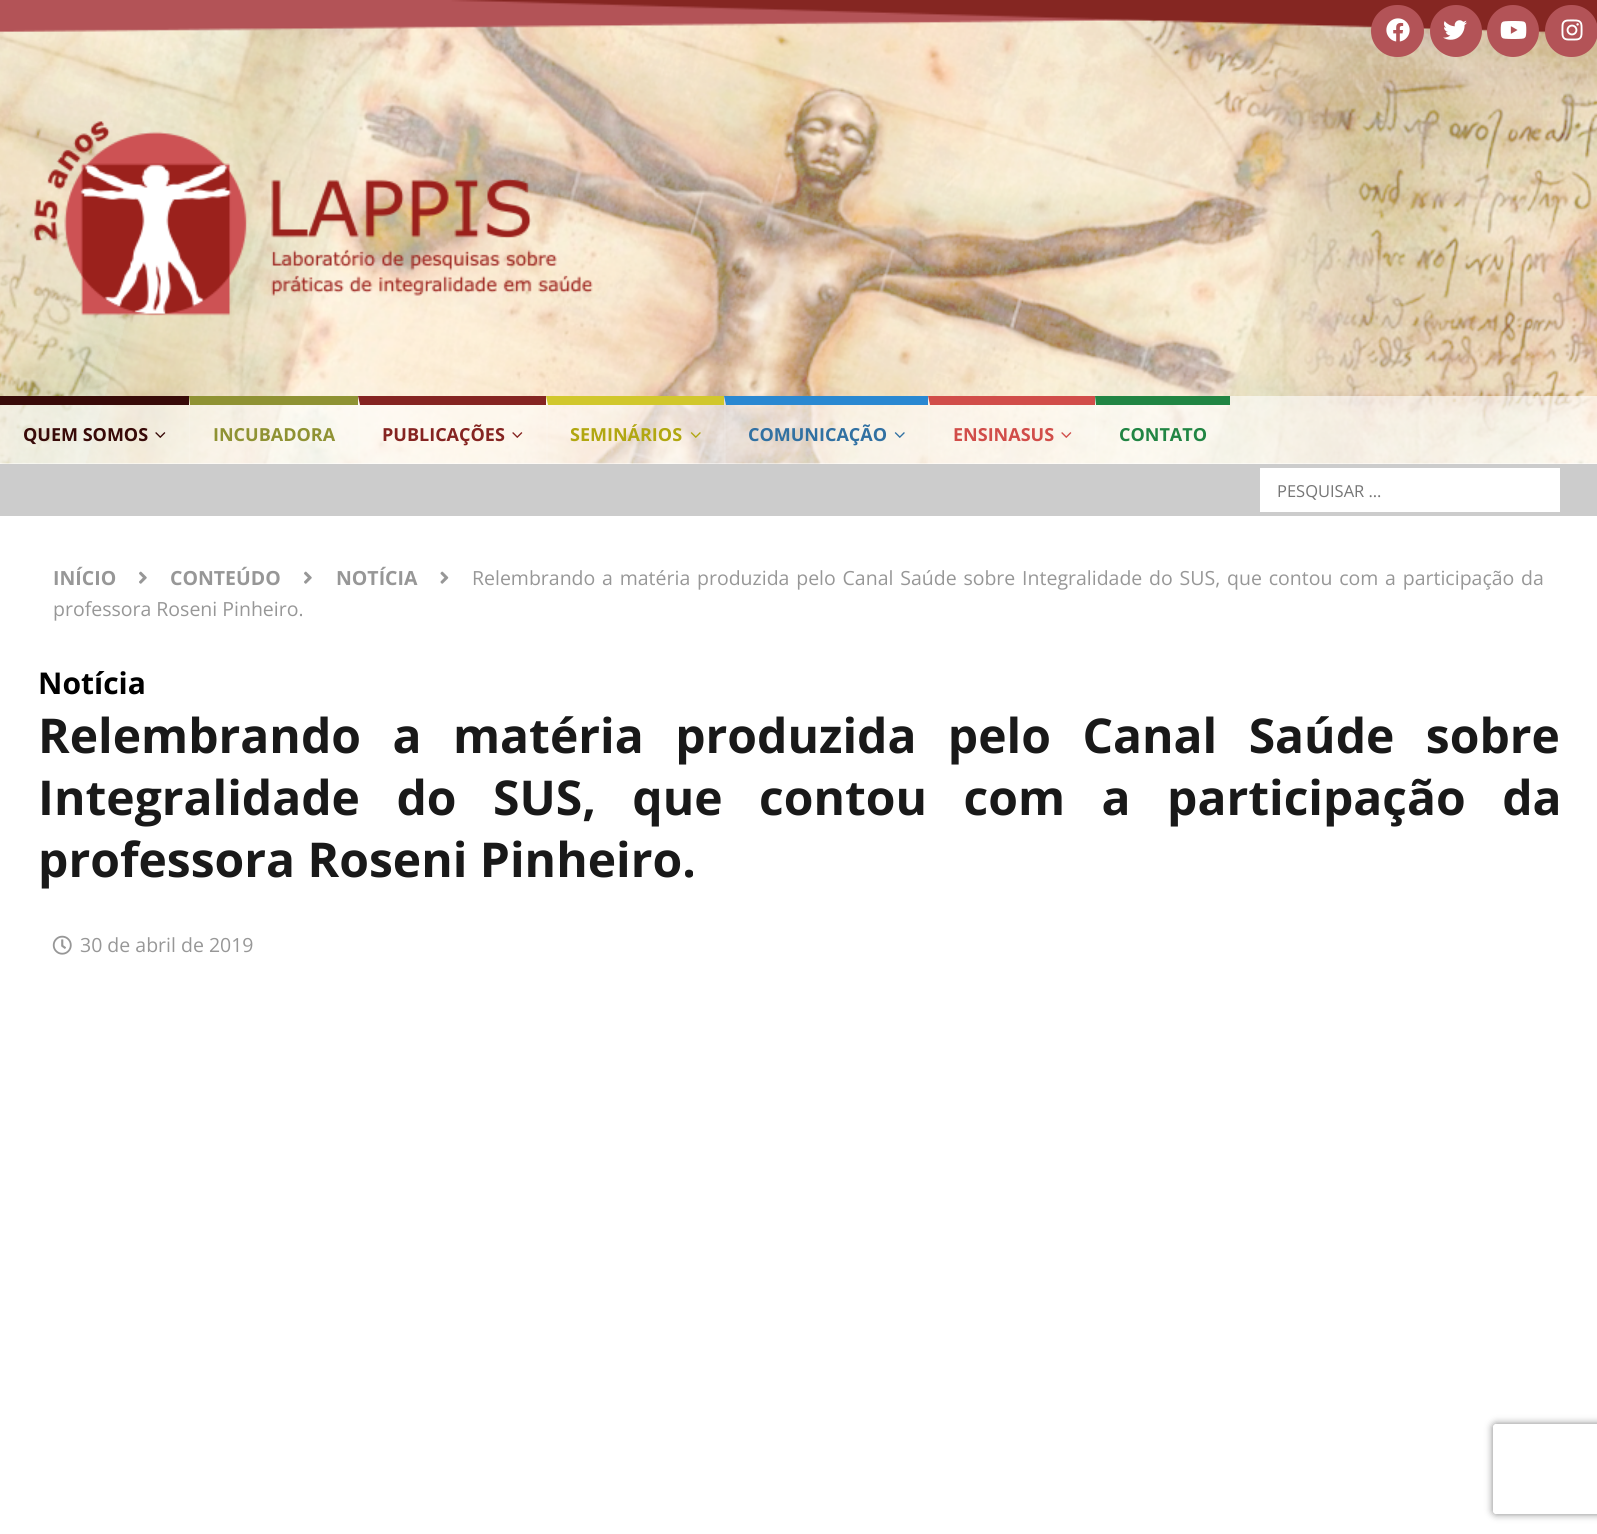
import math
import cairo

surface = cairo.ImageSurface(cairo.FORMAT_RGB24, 1597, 1534)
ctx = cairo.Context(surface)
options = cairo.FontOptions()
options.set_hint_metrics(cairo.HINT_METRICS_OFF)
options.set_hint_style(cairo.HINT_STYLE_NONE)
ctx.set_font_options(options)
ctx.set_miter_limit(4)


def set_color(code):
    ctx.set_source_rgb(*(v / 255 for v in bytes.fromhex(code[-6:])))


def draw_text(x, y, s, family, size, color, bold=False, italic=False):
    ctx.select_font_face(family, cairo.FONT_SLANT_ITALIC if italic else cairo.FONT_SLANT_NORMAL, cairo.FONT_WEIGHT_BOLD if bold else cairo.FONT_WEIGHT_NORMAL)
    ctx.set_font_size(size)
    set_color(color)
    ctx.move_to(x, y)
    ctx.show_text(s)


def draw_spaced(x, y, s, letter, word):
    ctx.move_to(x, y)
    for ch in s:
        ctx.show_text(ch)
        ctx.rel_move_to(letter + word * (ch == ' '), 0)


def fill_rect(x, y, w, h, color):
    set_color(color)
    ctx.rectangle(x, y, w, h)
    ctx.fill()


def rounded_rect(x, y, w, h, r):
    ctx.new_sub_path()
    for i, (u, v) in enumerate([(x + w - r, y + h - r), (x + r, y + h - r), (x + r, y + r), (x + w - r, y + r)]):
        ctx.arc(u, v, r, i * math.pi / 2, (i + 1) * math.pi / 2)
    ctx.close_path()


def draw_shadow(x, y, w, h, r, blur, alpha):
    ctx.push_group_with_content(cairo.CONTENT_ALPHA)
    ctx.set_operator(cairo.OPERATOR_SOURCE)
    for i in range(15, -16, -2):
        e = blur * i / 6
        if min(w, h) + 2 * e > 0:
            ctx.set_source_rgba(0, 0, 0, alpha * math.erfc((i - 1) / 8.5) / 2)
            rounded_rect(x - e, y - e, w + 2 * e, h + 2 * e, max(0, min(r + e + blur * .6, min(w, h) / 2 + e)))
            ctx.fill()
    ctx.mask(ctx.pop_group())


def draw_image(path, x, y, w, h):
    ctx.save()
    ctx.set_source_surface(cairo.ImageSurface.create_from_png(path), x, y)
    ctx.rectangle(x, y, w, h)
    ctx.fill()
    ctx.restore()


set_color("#ffffff")
ctx.paint()
draw_image("assets/img1.png", 0, 18, 1597, 446)
draw_image("assets/img2.png", 0, 0, 1597, 34)
set_color("#b35357")
rounded_rect(1371, 5, 53, 52, 26)
ctx.fill()
draw_image("assets/img3.png", 1386, 18, 24, 24)
ctx.arc(1456, 31, 26, 0, 2 * math.pi)
ctx.fill()
draw_image("assets/img4.png", 1443, 20, 24, 20)
ctx.arc(1513, 31, 26, 0, 2 * math.pi)
ctx.fill()
draw_image("assets/img5.png", 1500, 21, 27, 18)
rounded_rect(1545, 5, 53, 52, 26)
ctx.fill()
draw_image("assets/img6.png", 1561, 19, 22, 22)
draw_image("assets/img7.png", 34, 121, 559, 195)
ctx.set_source_rgba(1, 1, 1, 0.6)
ctx.rectangle(0, 396, 1597, 68)
ctx.fill()
fill_rect(0, 396, 189, 9, "#380a08")
draw_text(23, 441, "QUEM SOMOS", "Open Sans", 18, "#380a08", bold=True)
draw_image("assets/img8.png", 155, 432, 11, 6)
set_color("#8f9233")
ctx.new_path()
ctx.move_to(189, 396)
ctx.line_to(358, 396)
ctx.line_to(358, 405)
ctx.line_to(190, 405)
ctx.close_path()
ctx.fill()
ctx.set_source_rgba(1, 1, 1, 0.1)
ctx.new_path()
ctx.move_to(189, 464)
ctx.line_to(189, 396)
ctx.line_to(190, 405)
ctx.line_to(190, 464)
ctx.close_path()
ctx.fill()
draw_text(213, 441, "INCUBADORA", "Open Sans", 18, "#8f9233", bold=True)
set_color("#852421")
ctx.new_path()
ctx.move_to(358, 396)
ctx.line_to(546, 396)
ctx.line_to(546, 405)
ctx.line_to(360, 405)
ctx.close_path()
ctx.fill()
ctx.set_source_rgba(1, 1, 1, 0.1)
ctx.new_path()
ctx.move_to(358, 464)
ctx.line_to(358, 396)
ctx.line_to(360, 405)
ctx.line_to(360, 464)
ctx.close_path()
ctx.fill()
draw_text(382, 441, "PUBLICAÇÕES", "Open Sans", 18, "#852421", bold=True)
draw_image("assets/img9.png", 512, 432, 11, 6)
set_color("#d1c72c")
ctx.new_path()
ctx.move_to(546, 396)
ctx.line_to(724, 396)
ctx.line_to(724, 405)
ctx.line_to(548, 405)
ctx.close_path()
ctx.fill()
ctx.set_source_rgba(1, 1, 1, 0.1)
ctx.new_path()
ctx.move_to(546, 464)
ctx.line_to(546, 396)
ctx.line_to(548, 405)
ctx.line_to(548, 464)
ctx.close_path()
ctx.fill()
draw_text(570, 441, "SEMINÁRIOS", "Open Sans", 18, "#b1a711", bold=True)
draw_image("assets/img10.png", 690, 432, 11, 6)
set_color("#2a88d1")
ctx.new_path()
ctx.move_to(724, 396)
ctx.line_to(928, 396)
ctx.line_to(928, 405)
ctx.line_to(726, 405)
ctx.close_path()
ctx.fill()
ctx.set_source_rgba(1, 1, 1, 0.1)
ctx.new_path()
ctx.move_to(724, 464)
ctx.line_to(724, 396)
ctx.line_to(726, 405)
ctx.line_to(726, 464)
ctx.close_path()
ctx.fill()
draw_text(748, 441, "COMUNICAÇÃO", "Open Sans", 18, "#3171a2", bold=True)
draw_image("assets/img11.png", 894, 432, 11, 6)
set_color("#d14d49")
ctx.new_path()
ctx.move_to(928, 396)
ctx.line_to(1095, 396)
ctx.line_to(1095, 405)
ctx.line_to(930, 405)
ctx.close_path()
ctx.fill()
ctx.set_source_rgba(1, 1, 1, 0.1)
ctx.new_path()
ctx.move_to(928, 464)
ctx.line_to(928, 396)
ctx.line_to(930, 405)
ctx.line_to(930, 464)
ctx.close_path()
ctx.fill()
draw_text(953, 441, "ENSINASUS", "Open Sans", 18, "#d14d49", bold=True)
draw_image("assets/img12.png", 1061, 432, 11, 6)
set_color("#218543")
ctx.new_path()
ctx.move_to(1095, 396)
ctx.line_to(1230, 396)
ctx.line_to(1230, 405)
ctx.line_to(1096, 405)
ctx.close_path()
ctx.fill()
ctx.set_source_rgba(1, 1, 1, 0.1)
ctx.new_path()
ctx.move_to(1095, 464)
ctx.line_to(1095, 396)
ctx.line_to(1096, 405)
ctx.line_to(1096, 464)
ctx.close_path()
ctx.fill()
draw_text(1119, 441, "CONTATO", "Open Sans", 18, "#218543", bold=True)
fill_rect(0, 464, 1597, 52, "#cccccc")
fill_rect(1260, 468, 300, 44, "#ffffff")
draw_text(1277, 497, "PESQUISAR …", "Open Sans", 16.5, "#757575")
draw_text(53, 585, "INÍCIO", "Open Sans", 19.5, "#979797", bold=True)
draw_image("assets/img13.png", 139, 571, 8, 13)
draw_text(170, 585, "CONTEÚDO", "Open Sans", 19.5, "#979797", bold=True)
draw_image("assets/img13.png", 304, 571, 8, 13)
draw_text(336, 585, "NOTÍCIA", "Open Sans", 19.5, "#979797", bold=True)
draw_image("assets/img14.png", 440, 571, 9, 13)
ctx.select_font_face("Open Sans")
draw_spaced(472, 585, "Relembrando a matéria produzida pelo Canal Saúde sobre Integralidade do SUS, que contou com a participação da", 0, 1.75)
draw_text(53, 616, "professora Roseni Pinheiro.", "Open Sans", 19.5, "#979797")
draw_text(38, 694, "Notícia", "Open Sans", 30, "#000000", bold=True)
ctx.set_font_size(48)
set_color("#191919")
draw_spaced(38, 753, "Relembrando a matéria produzida pelo Canal Saúde sobre", 0, 19)
draw_spaced(38, 815, "Integralidade do SUS, que contou com a participação da", 0, 24)
draw_text(38, 877, "professora Roseni Pinheiro.", "Open Sans", 48, "#191919", bold=True)
draw_image("assets/img15.png", 52, 935, 20, 20)
draw_text(80, 952, "30 de abril de 2019", "Open Sans", 19.5, "#979797")
ctx.save()
ctx.set_fill_rule(cairo.FILL_RULE_EVEN_ODD)
ctx.new_path()
ctx.move_to(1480, 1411)
ctx.line_to(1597, 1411)
ctx.line_to(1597, 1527)
ctx.line_to(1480, 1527)
ctx.close_path()
ctx.move_to(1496, 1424)
ctx.line_to(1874, 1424)
ctx.curve_to(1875.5, 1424, 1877, 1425.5, 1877, 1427)
ctx.line_to(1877, 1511)
ctx.curve_to(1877, 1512.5, 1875.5, 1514, 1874, 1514)
ctx.line_to(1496, 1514)
ctx.curve_to(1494.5, 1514, 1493, 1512.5, 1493, 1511)
ctx.line_to(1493, 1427)
ctx.curve_to(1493, 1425.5, 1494.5, 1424, 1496, 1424)
ctx.close_path()
ctx.clip()
set_color("#808080")
draw_shadow(1493, 1424, 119, 90, 3, 4, 1)
ctx.restore()
surface.write_to_png("output.png")
